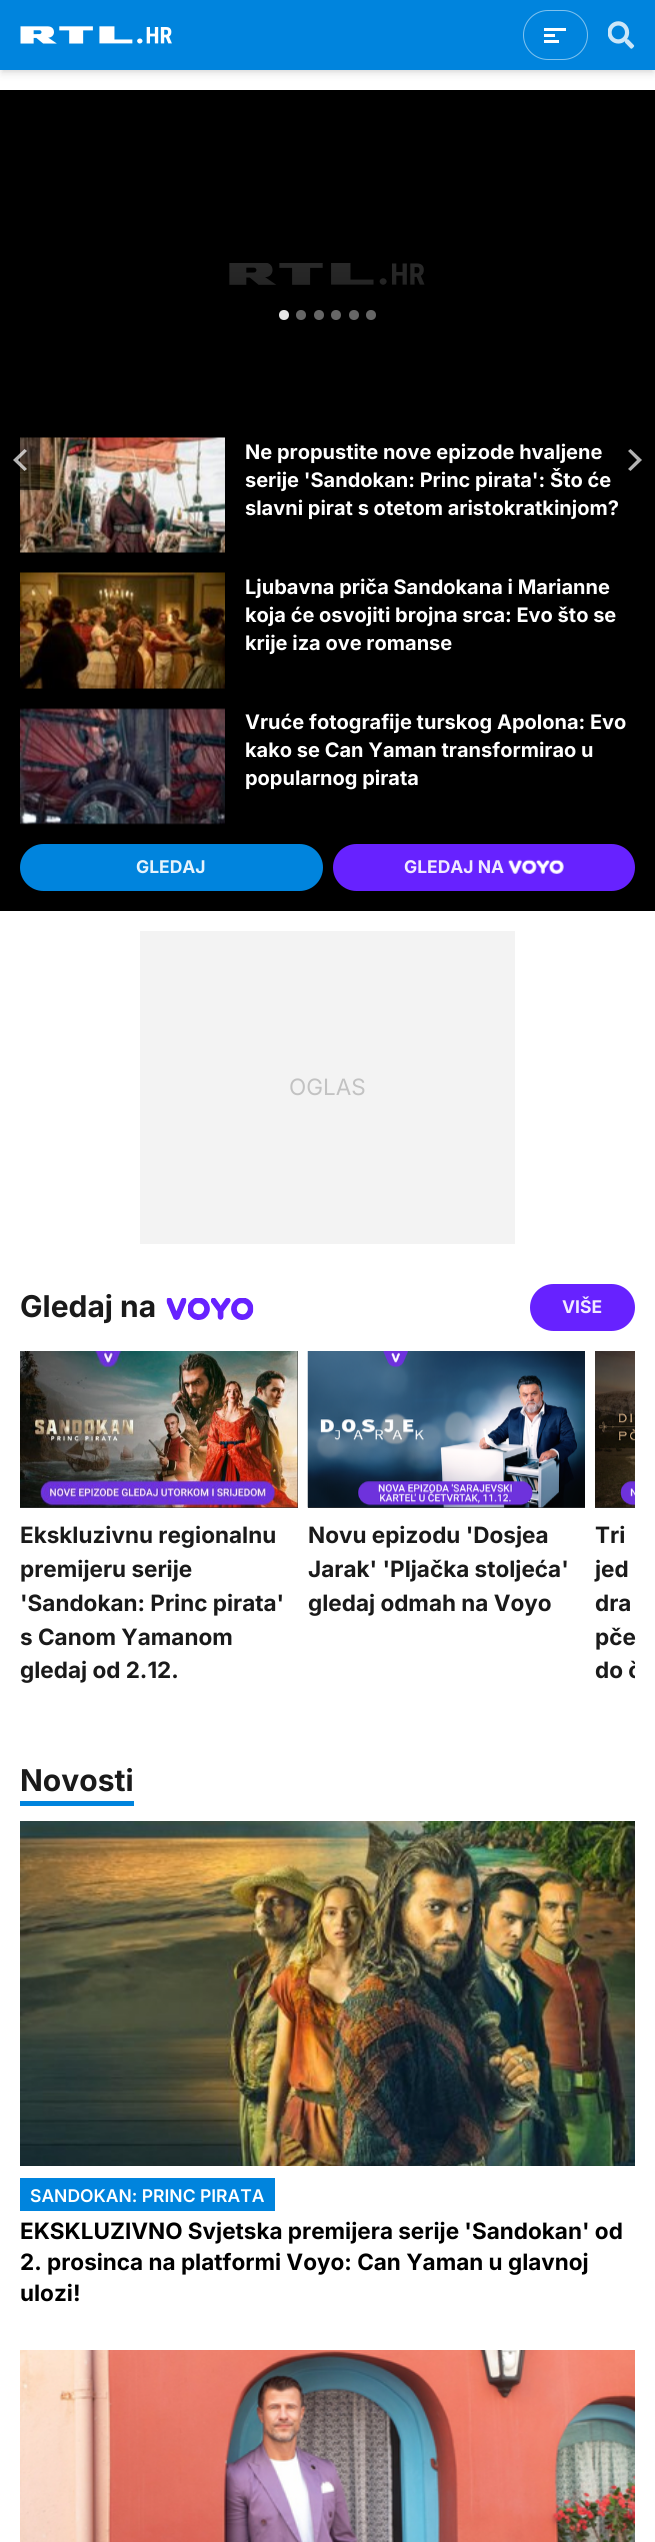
import math
import cairo

surface = cairo.ImageSurface(cairo.FORMAT_RGB24, 655, 2542)
ctx = cairo.Context(surface)
options = cairo.FontOptions()
options.set_hint_metrics(cairo.HINT_METRICS_OFF)
options.set_hint_style(cairo.HINT_STYLE_NONE)
ctx.set_font_options(options)
ctx.set_miter_limit(4)


def set_color(code):
    ctx.set_source_rgb(*(v / 255 for v in bytes.fromhex(code[-6:])))


def draw_text(x, y, s, family, size, color, bold=False, italic=False):
    ctx.select_font_face(family, cairo.FONT_SLANT_ITALIC if italic else cairo.FONT_SLANT_NORMAL, cairo.FONT_WEIGHT_BOLD if bold else cairo.FONT_WEIGHT_NORMAL)
    ctx.set_font_size(size)
    set_color(color)
    ctx.move_to(x, y)
    ctx.show_text(s)


def fill_rect(x, y, w, h, color):
    set_color(color)
    ctx.rectangle(x, y, w, h)
    ctx.fill()


def rounded_rect(x, y, w, h, r):
    ctx.new_sub_path()
    for i, (u, v) in enumerate([(x + w - r, y + h - r), (x + r, y + h - r), (x + r, y + r), (x + w - r, y + r)]):
        ctx.arc(u, v, r, i * math.pi / 2, (i + 1) * math.pi / 2)
    ctx.close_path()


def draw_shadow(x, y, w, h, r, blur, alpha):
    ctx.push_group_with_content(cairo.CONTENT_ALPHA)
    ctx.set_operator(cairo.OPERATOR_SOURCE)
    for i in range(15, -16, -2):
        e = blur * i / 6
        if min(w, h) + 2 * e > 0:
            ctx.set_source_rgba(0, 0, 0, alpha * math.erfc((i - 1) / 8.5) / 2)
            rounded_rect(x - e, y - e, w + 2 * e, h + 2 * e, max(0, min(r + e + blur * .6, min(w, h) / 2 + e)))
            ctx.fill()
    ctx.mask(ctx.pop_group())


def draw_image(path, x, y, w, h):
    ctx.save()
    ctx.set_source_surface(cairo.ImageSurface.create_from_png(path), x, y)
    ctx.rectangle(x, y, w, h)
    ctx.fill()
    ctx.restore()


set_color("#ffffff")
ctx.paint()
set_color("#000000")
draw_shadow(3, 5, 650, 65, 0, 2.5, 0.1)
draw_shadow(1, 6, 653, 68, 0, 4, 0.1)
fill_rect(0, 0, 655, 70, "#0084dd")
draw_image("assets/img1.png", 20, 26, 152, 18)
rounded_rect(523.5, 10.5, 64, 49, 24.5)
set_color("#80c2ee")
ctx.set_line_width(1)
ctx.stroke()
fill_rect(544, 28, 22, 3, "#ffffff")
fill_rect(544, 34, 11, 3, "#ffffff")
fill_rect(544, 40, 15, 3, "#ffffff")
draw_image("assets/img2.png", 608, 21, 27, 28)
fill_rect(0, 90, 655, 821, "#000000")
set_color("#e6e6e6")
ctx.arc(284, 315, 5, 0, 2 * math.pi)
ctx.fill()
set_color("#666666")
ctx.arc(301, 315, 5, 0, 2 * math.pi)
ctx.fill()
ctx.arc(319, 315, 5, 0, 2 * math.pi)
ctx.fill()
ctx.arc(336, 315, 5, 0, 2 * math.pi)
ctx.fill()
ctx.arc(354, 315, 5, 0, 2 * math.pi)
ctx.fill()
ctx.arc(371, 315, 5, 0, 2 * math.pi)
ctx.fill()
draw_image("assets/img4.png", 20, 437, 205, 116)
ctx.set_source_rgba(0, 0, 0, 0.49)
ctx.rectangle(20, 437, 20, 53)
ctx.fill()
ctx.set_source_rgba(1, 1, 1, 0.7)
ctx.new_path()
ctx.move_to(24.5, 449)
ctx.line_to(13, 460)
ctx.line_to(24.5, 471)
ctx.line_to(27, 469)
ctx.line_to(18, 460)
ctx.line_to(27, 451)
ctx.close_path()
ctx.fill()
set_color("#b3b3b3")
ctx.new_path()
ctx.move_to(628, 451)
ctx.line_to(637, 460)
ctx.line_to(628, 469)
ctx.line_to(630.5, 471)
ctx.line_to(642, 460)
ctx.line_to(630.5, 449)
ctx.close_path()
ctx.fill()
draw_image("assets/img3.png", 229, 263, 196, 22)
gradient = cairo.LinearGradient(328, 90, 328, 459)
gradient.add_color_stop_rgba(0, 0, 0, 0, 0)
gradient.add_color_stop_rgba(1, 0, 0, 0, 1)
ctx.set_source(gradient)
ctx.rectangle(229, 263, 196, 22)
ctx.fill()
draw_text(245, 459, "Ne propustite nove epizode hvaljene", "Inter", 20, "#ffffff", bold=True)
draw_text(245, 487, "serije 'Sandokan: Princ pirata': Što će", "Inter", 20, "#ffffff", bold=True)
draw_text(245, 515, "slavni pirat s otetom aristokratkinjom?", "Inter", 20, "#ffffff", bold=True)
draw_image("assets/img5.png", 20, 572, 205, 118)
draw_text(245, 594, "Ljubavna priča Sandokana i Marianne", "Inter", 20, "#ffffff", bold=True)
draw_text(245, 622, "koja će osvojiti brojna srca: Evo što se", "Inter", 20, "#ffffff", bold=True)
draw_text(245, 650, "krije iza ove romanse", "Inter", 20, "#ffffff", bold=True)
draw_image("assets/img6.png", 20, 708, 205, 117)
draw_text(245, 729, "Vruće fotografije turskog Apolona: Evo", "Inter", 20, "#ffffff", bold=True)
draw_text(245, 757, "kako se Can Yaman transformirao u", "Inter", 20, "#ffffff", bold=True)
draw_text(245, 785, "popularnog pirata", "Inter", 20, "#ffffff", bold=True)
set_color("#0084dd")
rounded_rect(20, 844, 303, 47, 23.5)
ctx.fill()
draw_text(136, 873, "GLEDAJ", "Inter", 17.5, "#e6f3fc", bold=True)
set_color("#6722ff")
rounded_rect(333, 844, 302, 47, 23.5)
ctx.fill()
draw_text(404, 873, "GLEDAJ NA", "Inter", 17.5, "#f0e9ff", bold=True)
draw_image("assets/img7.png", 508, 859, 56, 15)
fill_rect(140, 931, 375, 313, "#f3f3f3")
draw_text(289, 1095, "OGLAS", "Inter", 22.5, "#c2c2c2")
draw_text(20, 1317, "Gledaj na", "Inter", 30, "#1a1a1a", bold=True)
draw_image("assets/img8.png", 166, 1298, 88, 22)
set_color("#6722ff")
rounded_rect(530, 1284, 105, 47, 23.5)
ctx.fill()
draw_text(562, 1313, "VIŠE", "Inter", 17.5, "#f0e9ff", bold=True)
fill_rect(20, 1351, 278, 157, "#333333")
draw_image("assets/img9.png", 20, 1351, 278, 157)
draw_text(20, 1543, "Ekskluzivnu regionalnu", "Inter", 22.5, "#1a1a1a", bold=True)
draw_text(20, 1577, "premijeru serije", "Inter", 22.5, "#1a1a1a", bold=True)
draw_text(20, 1611, "'Sandokan: Princ pirata'", "Inter", 22.5, "#1a1a1a", bold=True)
draw_text(20, 1645, "s Canom Yamanom", "Inter", 22.5, "#1a1a1a", bold=True)
draw_text(20, 1678, "gledaj od 2.12.", "Inter", 22.5, "#1a1a1a", bold=True)
fill_rect(308, 1507, 277, 1, "#333333")
draw_image("assets/img10.png", 307, 1351, 278, 157)
draw_text(308, 1543, "Novu epizodu 'Dosjea", "Inter", 22.5, "#1a1a1a", bold=True)
draw_text(308, 1577, "Jarak' 'Pljačka stoljeća'", "Inter", 22.5, "#1a1a1a", bold=True)
draw_text(308, 1611, "gledaj odmah na Voyo", "Inter", 22.5, "#1a1a1a", bold=True)
fill_rect(595, 1507, 40, 1, "#333333")
draw_image("assets/img11.png", 595, 1351, 40, 157)
draw_text(595, 1543, "Tri", "Inter", 22.5, "#1a1a1a", bold=True)
draw_text(595, 1577, "jed", "Inter", 22.5, "#1a1a1a", bold=True)
draw_text(595, 1611, "dra", "Inter", 22.5, "#1a1a1a", bold=True)
draw_text(595, 1645, "pče", "Inter", 22.5, "#1a1a1a", bold=True)
ctx.save()
ctx.rectangle(20, 1351, 615, 370)
ctx.clip()
draw_text(595, 1678, "do č", "Inter", 22.5, "#1a1a1a", bold=True)
ctx.restore()
draw_text(20, 1791, "Novosti", "Inter", 30, "#1a1a1a", bold=True)
fill_rect(20, 1801, 114, 5, "#0084dd")
draw_image("assets/img12.png", 20, 1821, 615, 345)
fill_rect(20, 2178, 255, 33, "#0084dd")
draw_text(30, 2202, "SANDOKAN: PRINC PIRATA", "Inter SemiBold", 17.5, "#ffffff")
draw_text(20, 2239, "EKSKLUZIVNO Svjetska premijera serije 'Sandokan' od", "Inter", 22.5, "#000000", bold=True)
draw_text(20, 2270, "2. prosinca na platformi Voyo: Can Yaman u glavnoj", "Inter", 22.5, "#000000", bold=True)
draw_text(20, 2301, "ulozi!", "Inter", 22.5, "#000000", bold=True)
draw_image("assets/img13.png", 20, 2350, 615, 192)
surface.write_to_png("output.png")
